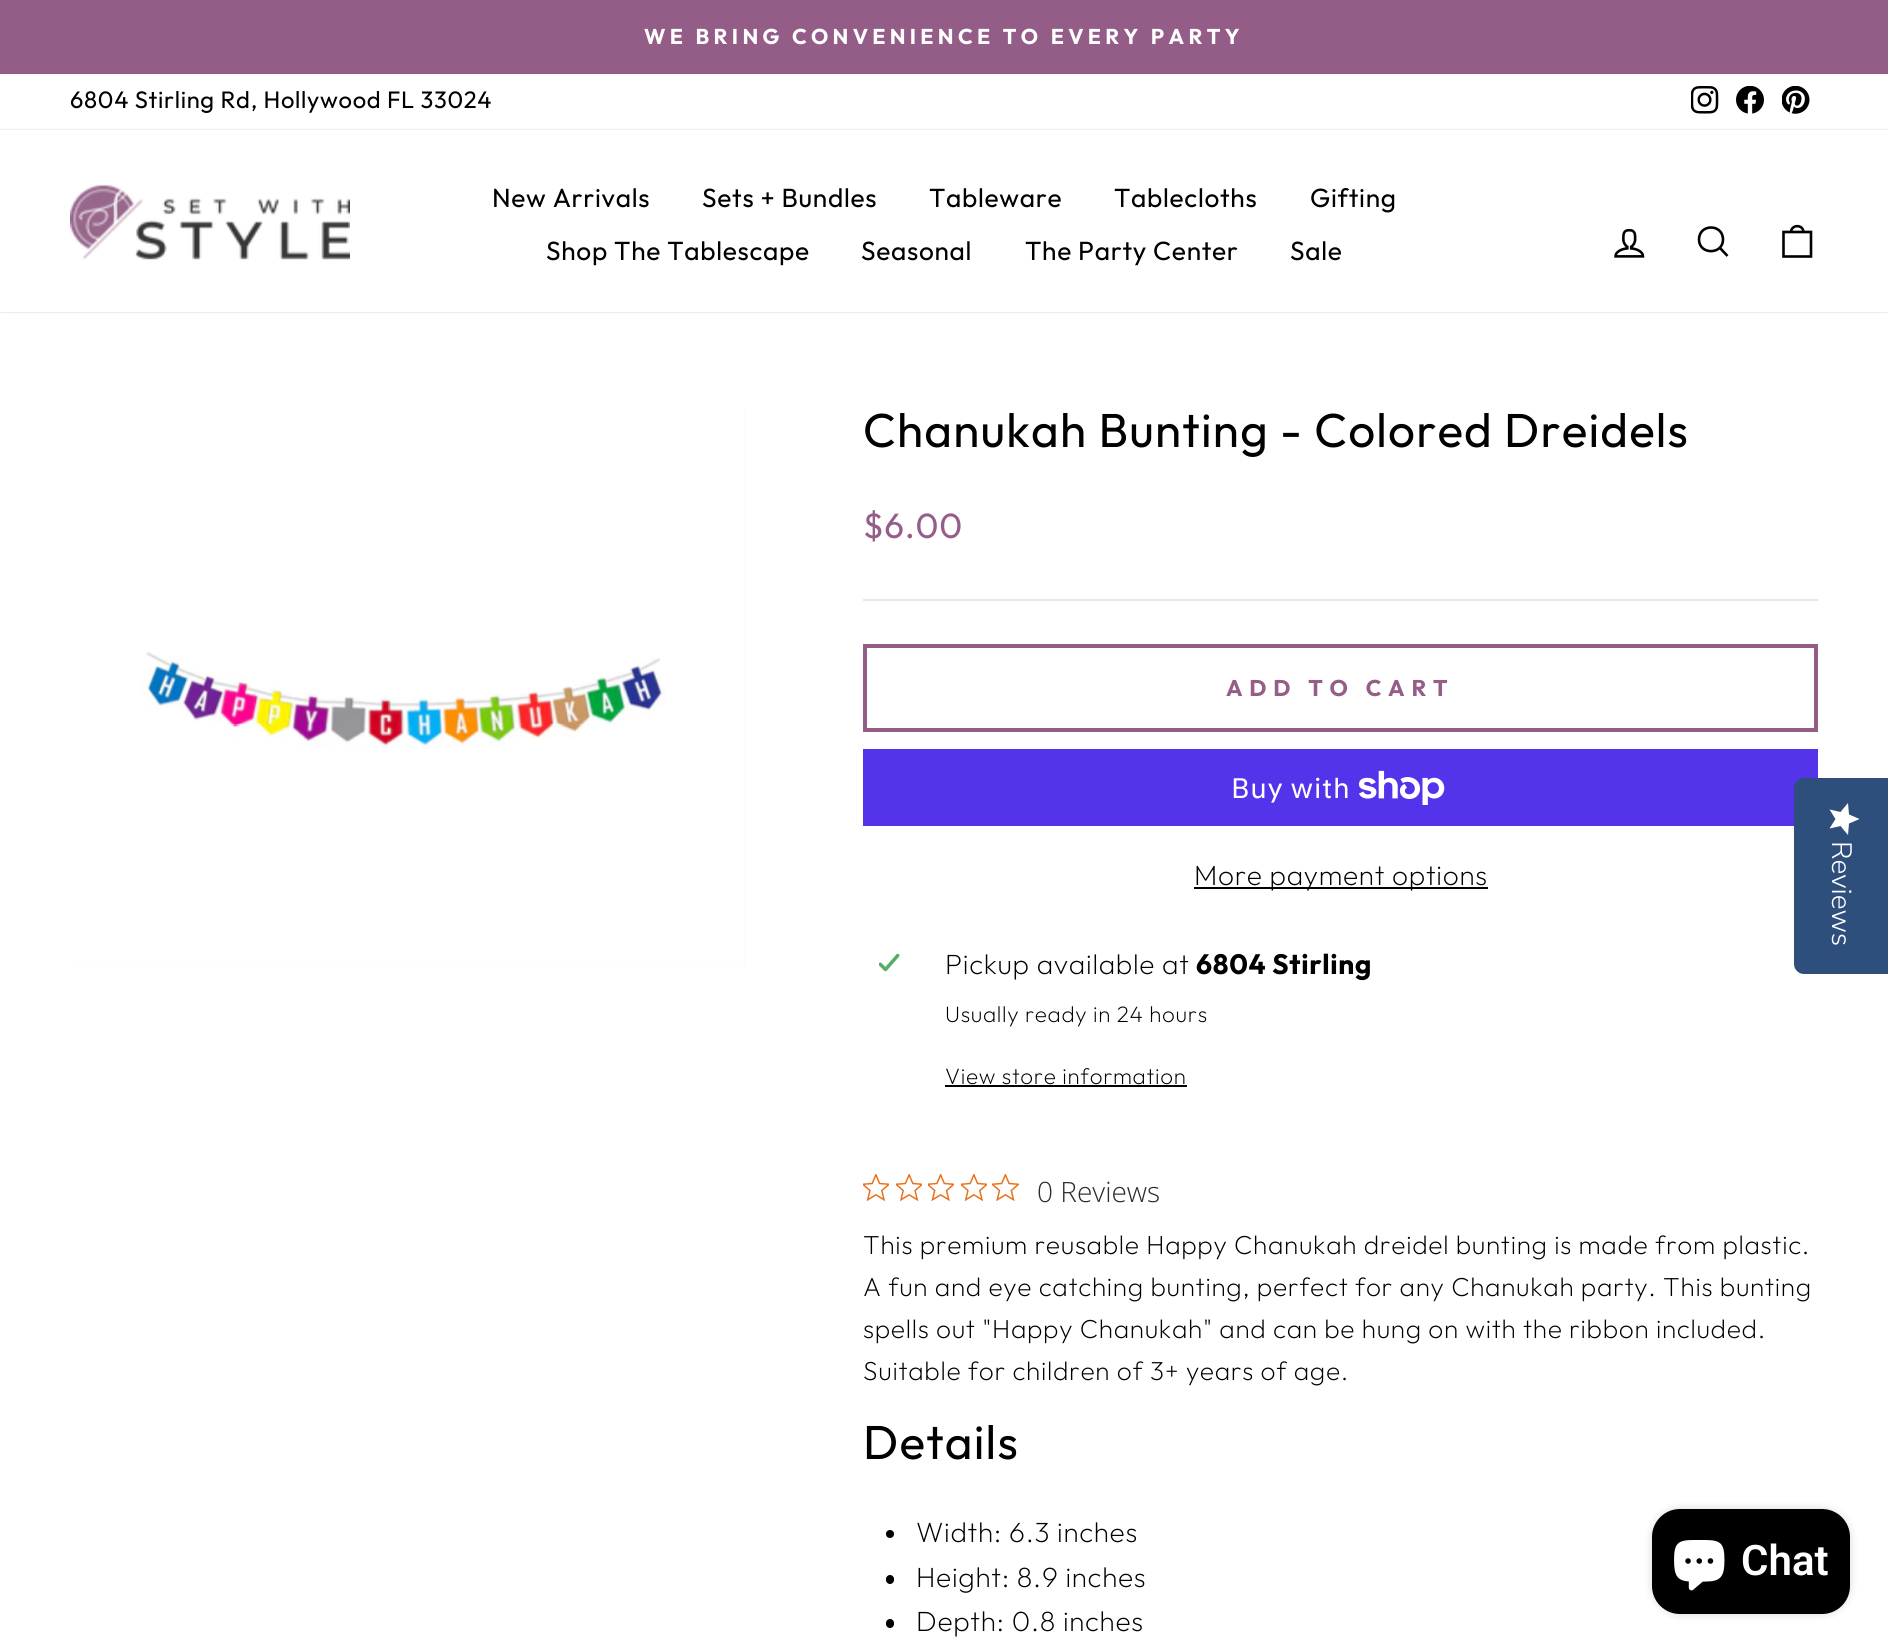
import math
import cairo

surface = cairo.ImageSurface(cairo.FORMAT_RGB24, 1888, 1650)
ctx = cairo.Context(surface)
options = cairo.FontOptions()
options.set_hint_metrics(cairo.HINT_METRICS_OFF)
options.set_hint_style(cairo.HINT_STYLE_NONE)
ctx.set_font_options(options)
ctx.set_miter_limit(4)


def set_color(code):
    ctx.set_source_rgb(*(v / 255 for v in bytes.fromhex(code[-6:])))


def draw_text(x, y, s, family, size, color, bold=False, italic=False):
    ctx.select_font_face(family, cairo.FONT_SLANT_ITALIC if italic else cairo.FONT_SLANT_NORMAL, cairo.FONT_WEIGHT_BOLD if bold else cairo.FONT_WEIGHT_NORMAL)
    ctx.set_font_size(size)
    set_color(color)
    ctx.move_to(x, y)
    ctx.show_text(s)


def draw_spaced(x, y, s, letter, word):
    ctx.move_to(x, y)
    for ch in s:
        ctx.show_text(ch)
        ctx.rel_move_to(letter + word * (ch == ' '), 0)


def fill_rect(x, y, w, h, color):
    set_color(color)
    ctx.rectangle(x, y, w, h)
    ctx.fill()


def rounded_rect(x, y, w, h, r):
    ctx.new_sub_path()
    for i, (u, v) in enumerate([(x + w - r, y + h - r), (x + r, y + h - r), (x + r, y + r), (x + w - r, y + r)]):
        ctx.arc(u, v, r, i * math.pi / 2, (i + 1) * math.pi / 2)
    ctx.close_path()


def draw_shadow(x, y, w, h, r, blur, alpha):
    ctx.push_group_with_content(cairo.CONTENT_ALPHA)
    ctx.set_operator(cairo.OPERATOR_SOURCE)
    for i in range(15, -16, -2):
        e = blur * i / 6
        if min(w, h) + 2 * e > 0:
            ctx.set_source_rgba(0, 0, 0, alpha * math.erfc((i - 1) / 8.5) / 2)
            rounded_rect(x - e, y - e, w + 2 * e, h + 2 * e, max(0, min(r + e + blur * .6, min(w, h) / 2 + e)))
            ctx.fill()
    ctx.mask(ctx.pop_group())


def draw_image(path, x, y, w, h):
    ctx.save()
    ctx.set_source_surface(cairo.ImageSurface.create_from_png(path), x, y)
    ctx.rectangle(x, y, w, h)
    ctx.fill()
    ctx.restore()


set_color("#ffffff")
ctx.paint()
fill_rect(0, 0, 1888, 74, "#945d88")
ctx.select_font_face("Outfit", cairo.FONT_SLANT_NORMAL, cairo.FONT_WEIGHT_BOLD)
ctx.set_font_size(21.4)
set_color("#ffffff")
draw_spaced(644, 44, "WE BRING CONVENIENCE TO EVERY PARTY", 4.3, 0)
ctx.select_font_face("Outfit")
ctx.set_font_size(23.75)
set_color("#000000")
draw_spaced(70, 108, "6804 Stirling Rd, Hollywood FL 33024", 0.7, 0)
draw_image("assets/img1.png", 1691, 86, 28, 28)
draw_image("assets/img2.png", 1736, 86, 28, 28)
draw_image("assets/img3.png", 1782, 86, 28, 28)
set_color("#000000")
draw_shadow(0, 130, 1888, 182, 0, 1, 0.2)
fill_rect(0, 130, 1888, 182, "#ffffff")
draw_image("assets/img4.png", 70, 184, 280, 76)
ctx.set_font_size(26.25)
set_color("#000000")
draw_spaced(492, 207, "New Arrivals", 0.7, 0)
draw_spaced(702, 207, "Sets + Bundles", 0.7, 0)
draw_spaced(929, 207, "Tableware", 0.7, 0)
draw_spaced(1114, 207, "Tablecloths", 0.7, 0)
draw_spaced(1310, 207, "Gifting", 0.7, 0)
draw_spaced(546, 260, "Shop The Tablescape", 0.7, 0)
draw_spaced(861, 260, "Seasonal", 0.7, 0)
draw_spaced(1025, 260, "The Party Center", 0.7, 0)
draw_spaced(1290, 260, "Sale", 0.7, 0)
draw_image("assets/img5.png", 1614, 228, 31, 30)
ctx.new_path()
ctx.move_to(1723, 239.5)
ctx.curve_to(1723, 255, 1699, 255, 1699, 239.5)
ctx.curve_to(1699, 223.5, 1723, 223.5, 1723, 239.5)
ctx.close_path()
ctx.move_to(1727.5, 256)
ctx.line_to(1720, 248)
ctx.set_line_width(2.6)
ctx.stroke()
ctx.new_path()
ctx.move_to(1783.5, 232)
ctx.line_to(1811, 232)
ctx.line_to(1811, 256.5)
ctx.line_to(1783.5, 256.5)
ctx.close_path()
ctx.move_to(1791, 232.5)
ctx.curve_to(1791, 224, 1803.5, 224, 1803.5, 232.5)
ctx.stroke()
fill_rect(70, 408, 676, 558, "#f8f8f8")
draw_image("assets/img6.png", 70, 408, 675, 558)
ctx.set_font_size(47.6)
set_color("#000000")
draw_spaced(863, 447, "Chanukah Bunting - Colored Dreidels", 1.2, 0)
ctx.set_font_size(35)
set_color("#955e88")
draw_spaced(863, 538, "$6.00", 0.7, 0)
fill_rect(863, 599, 955, 2, "#e8e8e1")
ctx.rectangle(865, 646, 951, 84)
set_color("#935d88")
ctx.set_line_width(4)
ctx.stroke()
ctx.select_font_face("Outfit", cairo.FONT_SLANT_NORMAL, cairo.FONT_WEIGHT_BOLD)
ctx.set_font_size(22.75)
set_color("#955e88")
draw_spaced(1226, 696, "ADD TO CART", 6.75, 0)
fill_rect(863, 749, 955, 77, "#5433eb")
ctx.select_font_face("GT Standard")
ctx.set_font_size(28)
set_color("#ffffff")
draw_spaced(1231, 798, "Buy with", 0.7, 0)
draw_image("assets/img7.png", 1359, 770, 86, 35)
fill_rect(1194, 887, 294, 2, "#000000")
ctx.select_font_face("Outfit ExtraLight")
draw_spaced(1194, 885, "More payment options", 0.7, 0)
draw_image("assets/img8.png", 879, 953, 21, 19)
draw_spaced(945, 974, "Pickup available at", 0.7, 0)
ctx.select_font_face("Outfit", cairo.FONT_SLANT_NORMAL, cairo.FONT_WEIGHT_BOLD)
draw_spaced(1196, 974, "6804 Stirling", 0.7, 0)
ctx.select_font_face("Outfit ExtraLight")
ctx.set_font_size(22.4)
draw_spaced(945, 1022, "Usually ready in 24 hours", 0.7, 0)
draw_spaced(945, 1084, "View store information", 0.7, 0)
fill_rect(945, 1085, 242, 2, "#000000")
draw_image("assets/img9.png", 863, 1174, 26, 27)
draw_image("assets/img10.png", 896, 1174, 26, 27)
draw_image("assets/img11.png", 928, 1174, 26, 27)
draw_image("assets/img9.png", 961, 1174, 26, 27)
draw_image("assets/img12.png", 992, 1174, 27, 27)
draw_text(1037, 1202, "0 Reviews", "Open Sans Light", 28, "#2c2c2c")
ctx.select_font_face("Outfit ExtraLight")
ctx.set_font_size(26.25)
set_color("#000000")
draw_spaced(863, 1254, "This premium reusable Happy Chanukah dreidel bunting is made from plastic.", 0.7, 0)
draw_spaced(863, 1296, "A fun and eye catching bunting, perfect for any Chanukah party. This bunting", 0.7, 0)
draw_spaced(863, 1338, "spells out \"Happy Chanukah\" and can be hung on with the ribbon included.", 0.7, 0)
draw_spaced(863, 1380, "Suitable for children of 3+ years of age.", 0.7, 0)
ctx.select_font_face("Outfit")
ctx.set_font_size(47.6)
draw_spaced(863, 1459, "Details", 1.2, 0)
ctx.new_path()
ctx.arc(890, 1534, 4, 0, 2 * math.pi)
ctx.fill()
ctx.select_font_face("Outfit ExtraLight")
ctx.set_font_size(28)
draw_spaced(916, 1542, "Width: 6.3 inches", 0.7, 0)
rounded_rect(886, 1575, 8, 9, 4)
ctx.fill()
draw_spaced(916, 1587, "Height: 8.9 inches", 0.7, 0)
rounded_rect(886, 1619, 8, 9, 4)
ctx.fill()
draw_spaced(916, 1631, "Depth: 0.8 inches", 0.7, 0)
set_color("#2e4f7c")
ctx.new_path()
ctx.move_to(1888, 778)
ctx.line_to(1888, 974)
ctx.line_to(1804, 974)
ctx.curve_to(1798, 974, 1794, 969, 1794, 964)
ctx.line_to(1794, 788)
ctx.curve_to(1794, 783, 1798, 778, 1804, 778)
ctx.close_path()
ctx.fill()
gradient = cairo.LinearGradient(1859, 803, 1859, 835)
gradient.add_color_stop_rgba(1, 1, 1, 1, 1)
gradient.add_color_stop_rgba(1, 0.918, 0.918, 0.918, 1)
ctx.set_source(gradient)
ctx.new_path()
ctx.move_to(1835.5, 819)
ctx.line_to(1829.5, 828.5)
ctx.line_to(1840.5, 826)
ctx.line_to(1848, 835)
ctx.line_to(1849, 823.5)
ctx.line_to(1859.5, 819)
ctx.line_to(1849, 814.5)
ctx.line_to(1848, 803)
ctx.line_to(1840.5, 812)
ctx.line_to(1829.5, 809.5)
ctx.close_path()
ctx.fill()
ctx.save()
ctx.translate(1832, 841)
ctx.rotate(90 * math.pi / 180)
draw_text(0, 0, "Reviews", "Nunito Sans Light", 28, "#ffffff")
ctx.restore()
set_color("#000000")
draw_shadow(1652, 1509, 198, 105, 28, 4.5, 0.15)
set_color("#000000")
rounded_rect(1652, 1509, 198, 105, 28)
ctx.fill()
draw_image("assets/img13.png", 1674, 1540, 51, 51)
draw_text(1741, 1575, "Chat", "Roboto SemiBold", 42, "#ffffff")
surface.write_to_png("output.png")
